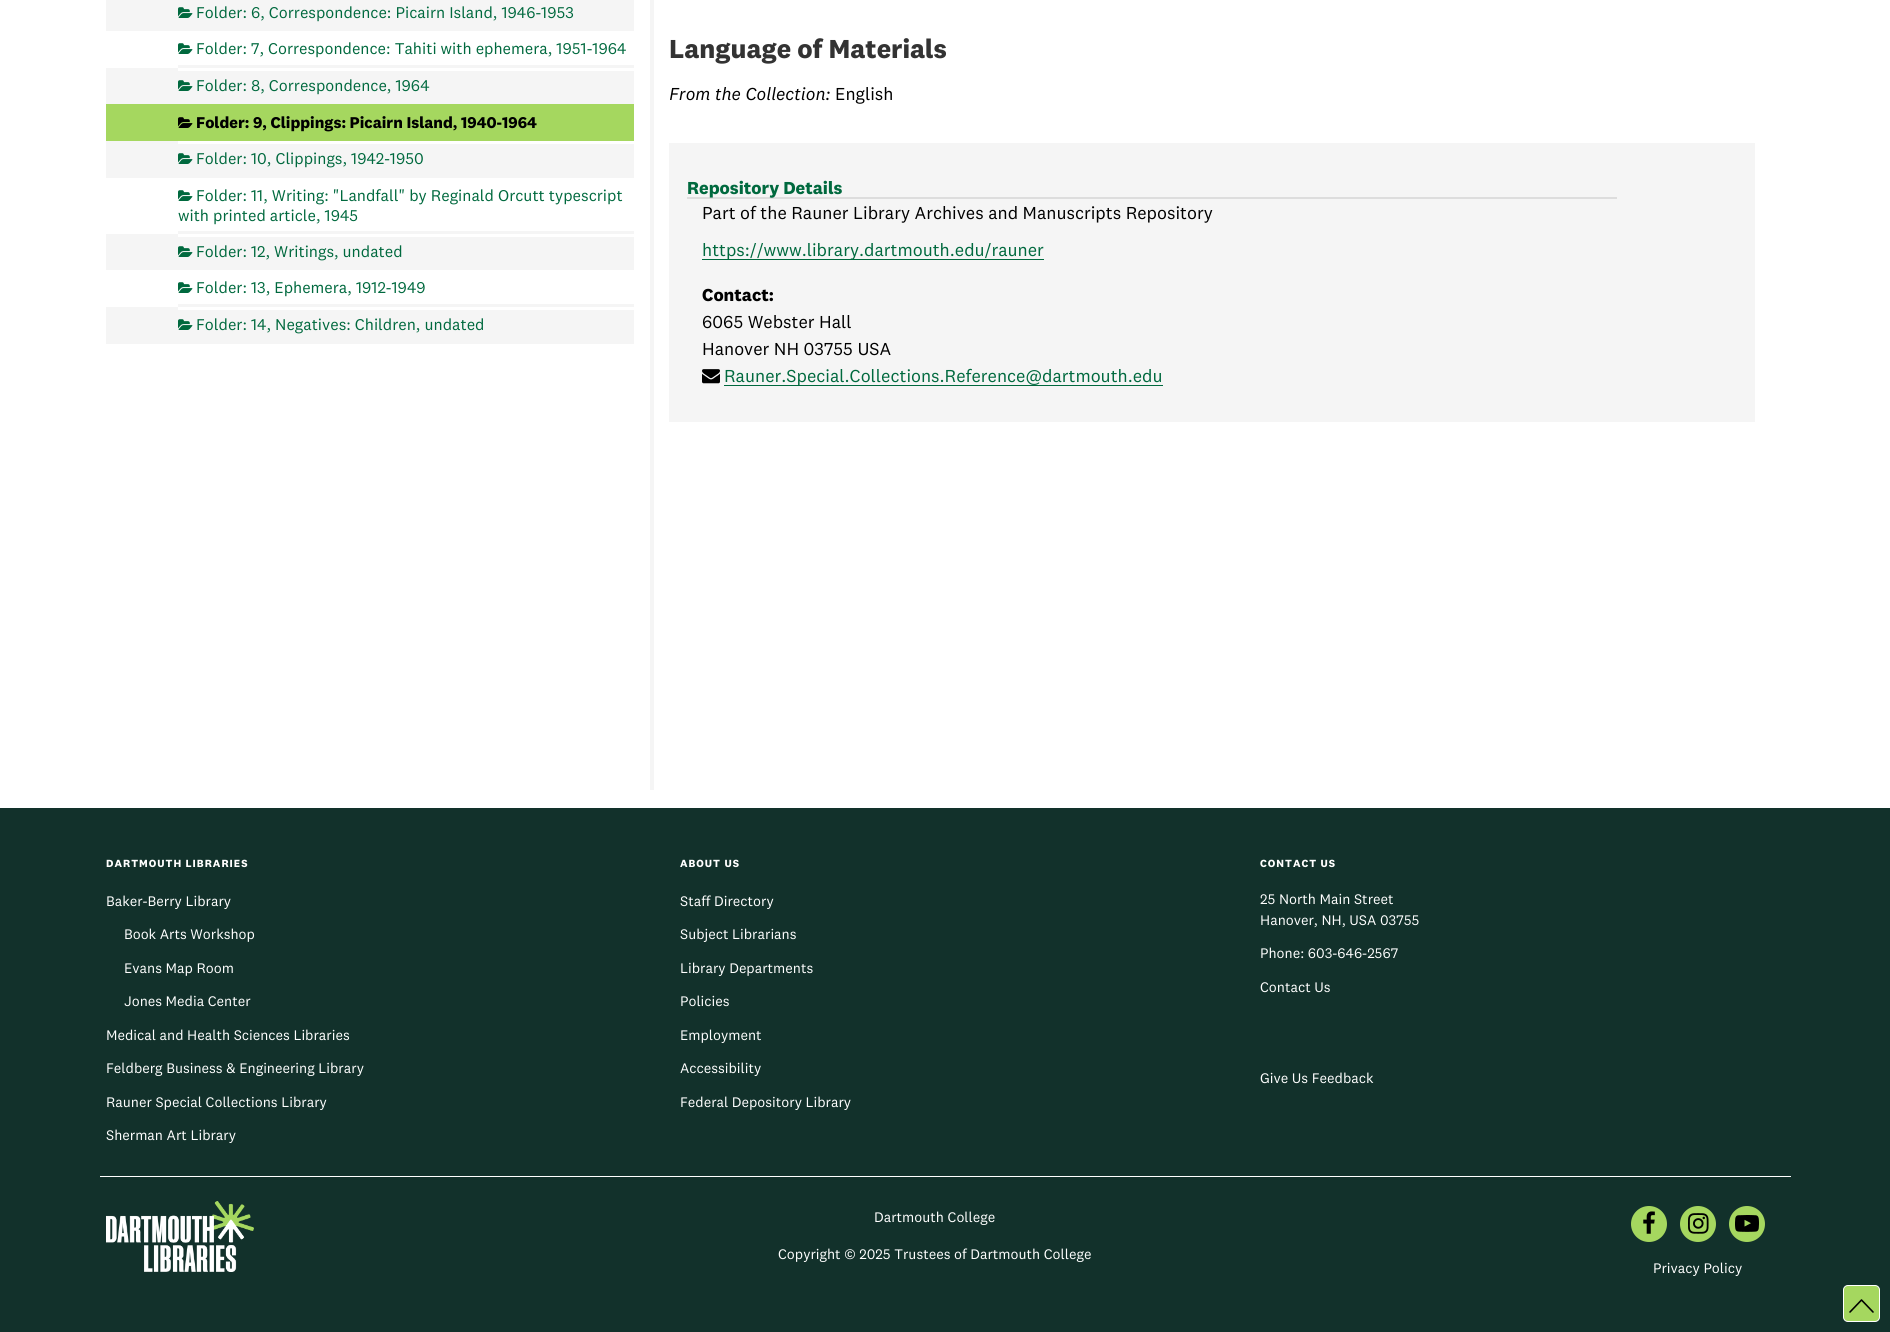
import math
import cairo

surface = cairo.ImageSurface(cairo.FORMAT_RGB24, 1890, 1332)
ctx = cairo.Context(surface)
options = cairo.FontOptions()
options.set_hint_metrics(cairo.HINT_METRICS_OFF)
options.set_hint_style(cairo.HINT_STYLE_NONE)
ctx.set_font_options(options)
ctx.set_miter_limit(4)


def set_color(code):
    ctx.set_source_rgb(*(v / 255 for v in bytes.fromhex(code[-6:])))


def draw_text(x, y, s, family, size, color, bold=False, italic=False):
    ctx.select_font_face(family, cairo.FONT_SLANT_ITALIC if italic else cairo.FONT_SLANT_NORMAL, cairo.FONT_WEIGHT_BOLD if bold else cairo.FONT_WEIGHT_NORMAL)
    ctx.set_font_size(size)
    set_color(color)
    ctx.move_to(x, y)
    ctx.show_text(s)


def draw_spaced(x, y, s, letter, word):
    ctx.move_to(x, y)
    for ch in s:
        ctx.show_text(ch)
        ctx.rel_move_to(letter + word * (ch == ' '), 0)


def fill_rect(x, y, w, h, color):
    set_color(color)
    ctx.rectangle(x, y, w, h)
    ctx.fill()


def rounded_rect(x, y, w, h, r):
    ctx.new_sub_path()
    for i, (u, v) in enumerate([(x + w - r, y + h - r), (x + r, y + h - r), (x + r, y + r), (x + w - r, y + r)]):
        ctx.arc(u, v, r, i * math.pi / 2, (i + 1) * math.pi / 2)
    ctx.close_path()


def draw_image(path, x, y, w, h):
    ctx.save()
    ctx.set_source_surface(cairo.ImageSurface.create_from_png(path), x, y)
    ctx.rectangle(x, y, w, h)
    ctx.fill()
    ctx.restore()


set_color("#ffffff")
ctx.paint()
fill_rect(106, 0, 528, 31, "#f5f5f5")
draw_image("assets/img1.png", 178, 7, 15, 11)
draw_text(196, 18, "Folder: 6, Correspondence: Picairn Island, 1946-1953", "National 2", 16.2, "#00693e")
fill_rect(178, 65, 456, 3, "#f5f5f5")
draw_image("assets/img2.png", 178, 43, 15, 11)
draw_text(196, 54, "Folder: 7, Correspondence: Tahiti with ephemera, 1951-1964", "National 2", 16.2, "#00693e")
fill_rect(178, 71, 456, 33, "#f5f5f5")
fill_rect(106, 68, 72, 36, "#f5f5f5")
draw_image("assets/img1.png", 178, 80, 15, 11)
draw_text(196, 91, "Folder: 8, Correspondence, 1964", "National 2", 16.2, "#00693e")
fill_rect(106, 104, 528, 37, "#a5d75f")
draw_image("assets/img3.png", 178, 117, 15, 11)
draw_text(196, 128, "Folder: 9, Clippings: Picairn Island, 1940-1964", "National 2", 16.2, "#000000", bold=True)
fill_rect(178, 144, 456, 34, "#f5f5f5")
fill_rect(106, 141, 72, 37, "#f5f5f5")
draw_image("assets/img1.png", 178, 153, 15, 11)
draw_text(196, 164, "Folder: 10, Clippings, 1942-1950", "National 2", 16.2, "#00693e")
fill_rect(178, 231, 456, 3, "#f5f5f5")
draw_image("assets/img2.png", 178, 190, 15, 11)
draw_text(196, 201, "Folder: 11, Writing: \"Landfall\" by Reginald Orcutt typescript", "National 2", 16.2, "#00693e")
draw_text(178, 221, "with printed article, 1945", "National 2", 16.2, "#00693e")
fill_rect(178, 237, 456, 33, "#f5f5f5")
fill_rect(106, 234, 72, 36, "#f5f5f5")
draw_image("assets/img1.png", 178, 246, 15, 11)
draw_text(196, 257, "Folder: 12, Writings, undated", "National 2", 16.2, "#00693e")
fill_rect(178, 304, 456, 3, "#f5f5f5")
draw_image("assets/img2.png", 178, 282, 15, 11)
draw_text(196, 293, "Folder: 13, Ephemera, 1912-1949", "National 2", 16.2, "#00693e")
fill_rect(178, 310, 456, 34, "#f5f5f5")
fill_rect(106, 307, 72, 37, "#f5f5f5")
draw_image("assets/img1.png", 178, 319, 15, 11)
draw_text(196, 330, "Folder: 14, Negatives: Children, undated", "National 2", 16.2, "#00693e")
fill_rect(650, 0, 4, 790, "#f5f5f5")
draw_text(669, 58, "Language of Materials", "National 2", 27, "#333333", bold=True)
draw_text(669, 100, "From the Collection:", "National 2", 18, "#000000", italic=True)
draw_text(835, 100, "English", "National 2", 18, "#000000")
fill_rect(669, 143, 1086, 279, "#f5f5f5")
fill_rect(687, 197, 930, 2, "#dddddd")
draw_text(687, 194, "Repository Details", "National 2", 18, "#00693e", bold=True)
draw_text(702, 219, "Part of the Rauner Library Archives and Manuscripts Repository", "National 2", 18, "#000000")
fill_rect(702, 259, 342, 1, "#00693e")
draw_text(702, 256, "https://www.library.dartmouth.edu/rauner", "National 2", 18, "#00693e")
draw_text(702, 301, "Contact:", "National 2", 18, "#000000", bold=True)
draw_text(702, 328, "6065 Webster Hall", "National 2", 18, "#000000")
draw_text(702, 355, "Hanover NH 03755 USA", "National 2", 18, "#000000")
draw_image("assets/img4.png", 702, 369, 18, 15)
fill_rect(724, 385, 439, 1, "#00693e")
draw_text(724, 382, "Rauner.Special.Collections.Reference@dartmouth.edu", "National 2", 18, "#00693e")
fill_rect(0, 808, 1890, 524, "#12312b")
fill_rect(100, 1176, 1691, 1, "#ffffff")
ctx.select_font_face("National 2", cairo.FONT_SLANT_NORMAL, cairo.FONT_WEIGHT_BOLD)
ctx.set_font_size(10.75)
draw_spaced(106, 867, "DARTMOUTH LIBRARIES", 1, 0)
draw_text(106, 906, "Baker-Berry Library", "National 2", 14.4, "#ffffff")
draw_text(124, 939, "Book Arts Workshop", "National 2", 14.4, "#ffffff")
draw_text(124, 973, "Evans Map Room", "National 2", 14.4, "#ffffff")
draw_text(124, 1006, "Jones Media Center", "National 2", 14.4, "#ffffff")
draw_text(106, 1040, "Medical and Health Sciences Libraries", "National 2", 14.4, "#ffffff")
draw_text(106, 1073, "Feldberg Business & Engineering Library", "National 2", 14.4, "#ffffff")
draw_text(106, 1107, "Rauner Special Collections Library", "National 2", 14.4, "#ffffff")
draw_text(106, 1140, "Sherman Art Library", "National 2", 14.4, "#ffffff")
ctx.select_font_face("National 2", cairo.FONT_SLANT_NORMAL, cairo.FONT_WEIGHT_BOLD)
ctx.set_font_size(10.75)
draw_spaced(680, 867, "ABOUT US", 1, 0)
draw_text(680, 906, "Staff Directory", "National 2", 14.4, "#ffffff")
draw_text(680, 939, "Subject Librarians", "National 2", 14.4, "#ffffff")
draw_text(680, 973, "Library Departments", "National 2", 14.4, "#ffffff")
draw_text(680, 1006, "Policies", "National 2", 14.4, "#ffffff")
draw_text(680, 1040, "Employment", "National 2", 14.4, "#ffffff")
draw_text(680, 1073, "Accessibility", "National 2", 14.4, "#ffffff")
draw_text(680, 1107, "Federal Depository Library", "National 2", 14.4, "#ffffff")
ctx.select_font_face("National 2", cairo.FONT_SLANT_NORMAL, cairo.FONT_WEIGHT_BOLD)
ctx.set_font_size(10.75)
draw_spaced(1260, 867, "CONTACT US", 1, 0)
draw_text(1260, 904, "25 North Main Street", "National 2", 14.4, "#ffffff")
draw_text(1260, 925, "Hanover, NH, USA 03755", "National 2", 14.4, "#ffffff")
draw_text(1260, 958, "Phone: 603-646-2567", "National 2", 14.4, "#ffffff")
draw_text(1260, 992, "Contact Us", "National 2", 14.4, "#ffffff")
draw_text(1260, 1083, "Give Us Feedback", "National 2", 14.4, "#ffffff")
draw_image("assets/img5.png", 106, 1201, 148, 71)
draw_text(874, 1222, "Dartmouth College", "National 2", 14.4, "#ffffff")
draw_text(778, 1259, "Copyright © 2025 Trustees of Dartmouth College", "National 2", 14.4, "#ffffff")
set_color("#a5d75f")
ctx.new_path()
ctx.arc(1649, 1224, 18, 0, 2 * math.pi)
ctx.fill()
draw_image("assets/img6.png", 1643, 1211, 12, 23)
ctx.arc(1698, 1224, 18, 0, 2 * math.pi)
ctx.fill()
draw_image("assets/img7.png", 1688, 1213, 21, 21)
ctx.arc(1747, 1224, 18, 0, 2 * math.pi)
ctx.fill()
draw_image("assets/img8.png", 1735, 1215, 24, 17)
draw_text(1653, 1273, "Privacy Policy", "National 2", 14.4, "#ffffff")
set_color("#a5d75f")
rounded_rect(1843.5, 1285.5, 36, 36, 4.5)
ctx.fill_preserve()
set_color("#ffffff")
ctx.set_line_width(1)
ctx.stroke()
ctx.new_path()
ctx.move_to(1873, 1312)
ctx.line_to(1861.5, 1300)
ctx.line_to(1850, 1312)
set_color("#000000")
ctx.set_line_width(1.6)
ctx.set_line_cap(cairo.LINE_CAP_ROUND)
ctx.set_line_join(cairo.LINE_JOIN_ROUND)
ctx.stroke()
surface.write_to_png("output.png")
